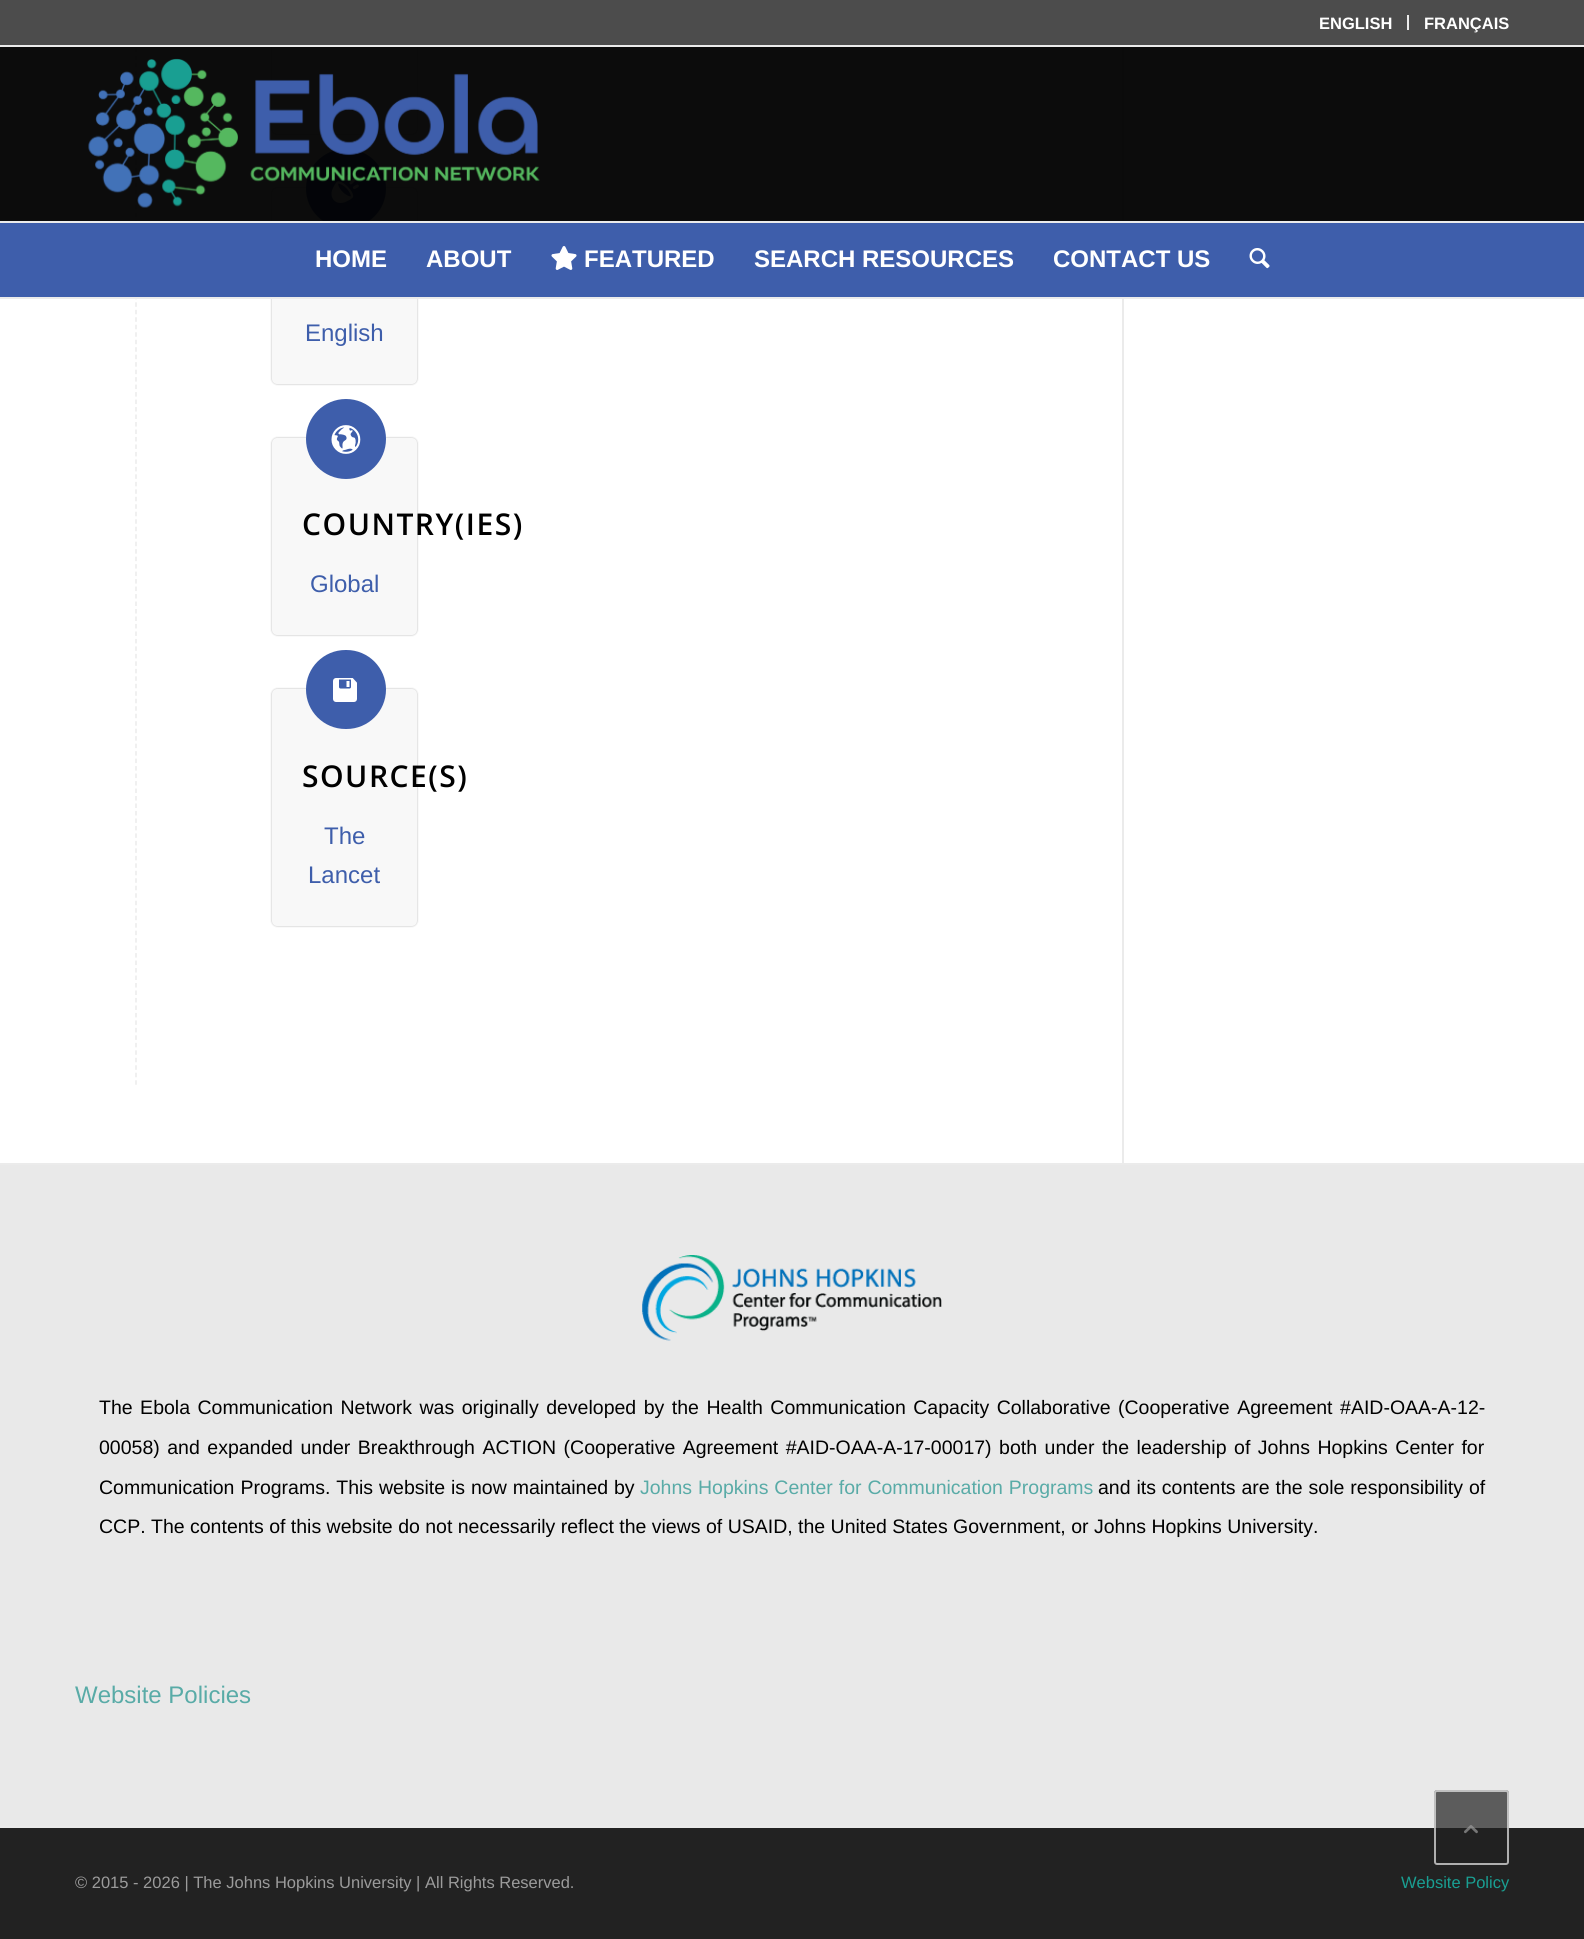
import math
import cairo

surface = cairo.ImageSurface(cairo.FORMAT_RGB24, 1584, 1939)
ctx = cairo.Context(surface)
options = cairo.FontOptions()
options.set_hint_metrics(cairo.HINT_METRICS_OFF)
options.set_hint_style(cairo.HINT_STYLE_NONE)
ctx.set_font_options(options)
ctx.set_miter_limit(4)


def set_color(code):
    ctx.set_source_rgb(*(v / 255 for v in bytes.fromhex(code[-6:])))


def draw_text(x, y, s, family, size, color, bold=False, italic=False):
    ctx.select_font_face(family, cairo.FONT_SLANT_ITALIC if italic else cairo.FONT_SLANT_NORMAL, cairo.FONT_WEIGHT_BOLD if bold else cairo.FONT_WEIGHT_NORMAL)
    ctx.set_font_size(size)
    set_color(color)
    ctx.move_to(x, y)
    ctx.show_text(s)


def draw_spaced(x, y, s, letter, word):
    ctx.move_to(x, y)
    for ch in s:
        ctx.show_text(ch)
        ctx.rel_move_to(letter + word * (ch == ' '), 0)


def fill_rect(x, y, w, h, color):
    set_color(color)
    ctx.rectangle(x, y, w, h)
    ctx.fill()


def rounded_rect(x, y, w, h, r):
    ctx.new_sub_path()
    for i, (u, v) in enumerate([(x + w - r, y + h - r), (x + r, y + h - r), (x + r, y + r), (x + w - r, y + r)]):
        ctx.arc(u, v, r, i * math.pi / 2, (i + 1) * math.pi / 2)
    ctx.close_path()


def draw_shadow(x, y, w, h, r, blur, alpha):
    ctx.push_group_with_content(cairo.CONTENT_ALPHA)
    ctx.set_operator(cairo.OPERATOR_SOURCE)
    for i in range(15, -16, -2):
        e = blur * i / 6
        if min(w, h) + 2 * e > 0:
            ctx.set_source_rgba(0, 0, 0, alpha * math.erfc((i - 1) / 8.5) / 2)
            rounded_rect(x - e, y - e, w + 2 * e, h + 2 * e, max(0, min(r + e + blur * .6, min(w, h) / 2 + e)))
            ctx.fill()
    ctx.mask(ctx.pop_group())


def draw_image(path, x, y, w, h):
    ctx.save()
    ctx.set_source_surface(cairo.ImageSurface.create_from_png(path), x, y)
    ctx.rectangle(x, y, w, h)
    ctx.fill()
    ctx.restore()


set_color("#ffffff")
ctx.paint()
ctx.new_path()
ctx.move_to(136, -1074)
ctx.line_to(136, 1087.5)
set_color("#ebebeb")
ctx.set_line_width(1.5)
ctx.set_dash([4.5, 2.98])
ctx.stroke()
set_color("#000000")
draw_shadow(272, -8, 145, 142, 5, 1, 0.3)
set_color("#f8f8f8")
rounded_rect(272, -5, 145, 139, 5)
ctx.fill()
fill_rect(0, 0, 1584, 45, "#4c4c4c")
fill_rect(0, 45, 1584, 2, "#ebebeb")
fill_rect(1407, 15, 2, 15, "#ebebeb")
draw_text(1319, 29, "ENGLISH", "Liberation Sans", 16.5, "#ffffff", bold=True)
draw_text(1424, 29, "FRANÇAIS", "Liberation Sans", 16.5, "#ffffff", bold=True)
fill_rect(1122, 47, 2, 1116, "#ebebeb")
set_color("#000000")
draw_shadow(272, 188, 145, 196, 5, 1, 0.3)
set_color("#f8f8f8")
rounded_rect(272, 188, 145, 196, 5)
ctx.fill()
set_color("#3e5eab")
rounded_rect(306, 149, 80, 79, 39.5)
ctx.fill()
draw_image("assets/img4.png", 331, 175, 28, 28)
ctx.set_source_rgba(0, 0, 0, 0.95)
ctx.rectangle(0, 47, 1584, 174)
ctx.fill()
fill_rect(0, 297, 1584, 2, "#ebebeb")
draw_image("assets/img1.png", 88, 58, 452, 150)
fill_rect(0, 223, 1584, 74, "#3e5eab")
fill_rect(0, 221, 1584, 2, "#ebebeb")
draw_text(315, 267, "HOME", "Liberation Sans", 24, "#ffffff", bold=True)
draw_text(426, 267, "ABOUT", "Liberation Sans", 24, "#ffffff", bold=True)
draw_image("assets/img2.png", 551, 246, 26, 24)
draw_text(584, 267, "FEATURED", "Liberation Sans", 24, "#ffffff", bold=True)
draw_text(754, 267, "SEARCH RESOURCES", "Liberation Sans", 24, "#ffffff", bold=True)
draw_text(1053, 267, "CONTACT US", "Liberation Sans", 24, "#ffffff", bold=True)
draw_image("assets/img3.png", 1249, 248, 21, 21)
draw_text(305, 341, "English", "Liberation Sans", 24, "#3e5eab")
set_color("#000000")
draw_shadow(272, 438, 145, 197, 5, 1, 0.3)
set_color("#f8f8f8")
rounded_rect(272, 438, 145, 197, 5)
ctx.fill()
set_color("#3e5eab")
ctx.arc(346, 439, 40, 0, 2 * math.pi)
ctx.fill()
draw_image("assets/img5.png", 331, 425, 30, 29)
ctx.select_font_face("Open Sans SemiBold")
ctx.set_font_size(30)
set_color("#000000")
draw_spaced(302, 535, "COUNTRY(IES)", 1.5, 0)
draw_text(310, 592, "Global", "Liberation Sans", 24, "#3e5eab")
set_color("#000000")
draw_shadow(272, 689, 145, 237, 5, 1, 0.3)
set_color("#f8f8f8")
rounded_rect(272, 689, 145, 237, 5)
ctx.fill()
set_color("#3e5eab")
rounded_rect(306, 650, 80, 79, 39.5)
ctx.fill()
draw_image("assets/img6.png", 333, 678, 24, 24)
ctx.select_font_face("Open Sans SemiBold")
ctx.set_font_size(30)
set_color("#000000")
draw_spaced(302, 787, "SOURCE(S)", 1.5, 0)
draw_text(324, 844, "The", "Liberation Sans", 24, "#3e5eab")
draw_text(308, 883, "Lancet", "Liberation Sans", 24, "#3e5eab")
fill_rect(0, 1165, 1584, 661, "#e9e9e9")
fill_rect(0, 1163, 1584, 2, "#ebebeb")
draw_image("assets/img7.png", 642, 1255, 300, 86)
ctx.set_font_size(19.5)
set_color("#000000")
draw_spaced(99, 1414, "The Ebola Communication Network was originally developed by the Health Communication Capacity Collaborative (Cooperative Agreement #AID-OAA-A-12-", 0, 2.1)
draw_spaced(99, 1454, "00058) and expanded under Breakthrough ACTION (Cooperative Agreement #AID-OAA-A-17-00017) both under the leadership of Johns Hopkins Center for", 0, 2.1)
draw_spaced(99, 1494, "Communication Programs. This website is now maintained by", 0, 0.5)
set_color("#59aba7")
draw_spaced(640, 1494, "Johns Hopkins Center for Communication Programs", 0, 0.5)
set_color("#000000")
draw_spaced(1098, 1494, "and its contents are the sole responsibility of", 0, 0.5)
draw_text(99, 1533, "CCP. The contents of this website do not necessarily reflect the views of USAID, the United States Government, or Johns Hopkins University.", "Liberation Sans", 19.5, "#000000")
draw_text(75, 1703, "Website Policies", "Liberation Sans", 24, "#59aba7")
fill_rect(0, 1828, 1584, 111, "#222222")
fill_rect(0, 1826, 1584, 2, "#ebebeb")
draw_text(75, 1888, "© 2015 - 2026 | The Johns Hopkins University | All Rights Reserved.", "Liberation Sans", 16.5, "#9b9b9b")
draw_text(1401, 1888, "Website Policy", "Liberation Sans", 16.5, "#199f92")
ctx.set_source_rgba(0.133, 0.133, 0.133, 0.7)
rounded_rect(1434, 1790, 75, 75, 3)
ctx.fill()
rounded_rect(1435, 1791, 73, 73, 2)
ctx.set_source_rgba(0.922, 0.922, 0.922, 0.7)
ctx.set_line_width(2)
ctx.set_dash([])
ctx.stroke()
draw_image("assets/img8.png", 1464, 1825, 14, 9)
surface.write_to_png("output.png")
